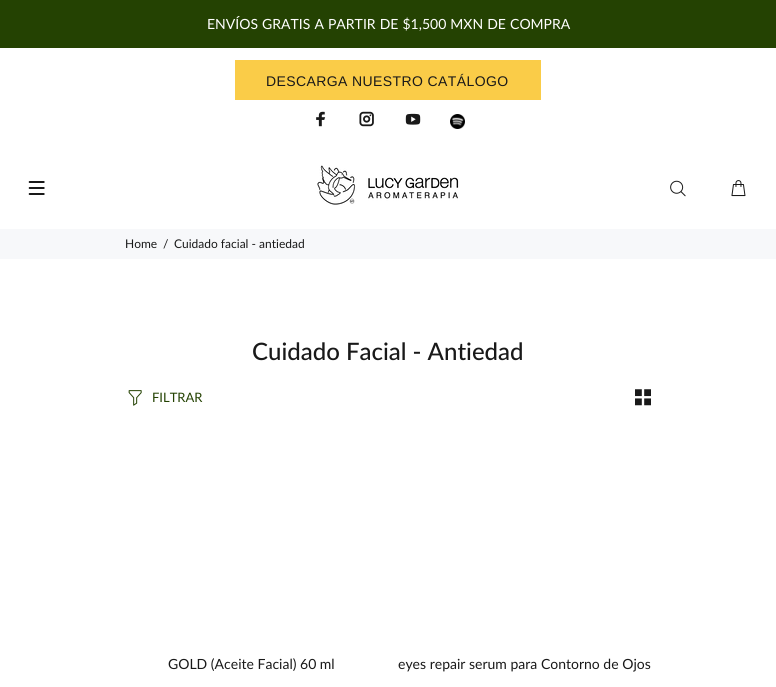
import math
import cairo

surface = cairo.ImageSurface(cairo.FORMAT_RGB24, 776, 687)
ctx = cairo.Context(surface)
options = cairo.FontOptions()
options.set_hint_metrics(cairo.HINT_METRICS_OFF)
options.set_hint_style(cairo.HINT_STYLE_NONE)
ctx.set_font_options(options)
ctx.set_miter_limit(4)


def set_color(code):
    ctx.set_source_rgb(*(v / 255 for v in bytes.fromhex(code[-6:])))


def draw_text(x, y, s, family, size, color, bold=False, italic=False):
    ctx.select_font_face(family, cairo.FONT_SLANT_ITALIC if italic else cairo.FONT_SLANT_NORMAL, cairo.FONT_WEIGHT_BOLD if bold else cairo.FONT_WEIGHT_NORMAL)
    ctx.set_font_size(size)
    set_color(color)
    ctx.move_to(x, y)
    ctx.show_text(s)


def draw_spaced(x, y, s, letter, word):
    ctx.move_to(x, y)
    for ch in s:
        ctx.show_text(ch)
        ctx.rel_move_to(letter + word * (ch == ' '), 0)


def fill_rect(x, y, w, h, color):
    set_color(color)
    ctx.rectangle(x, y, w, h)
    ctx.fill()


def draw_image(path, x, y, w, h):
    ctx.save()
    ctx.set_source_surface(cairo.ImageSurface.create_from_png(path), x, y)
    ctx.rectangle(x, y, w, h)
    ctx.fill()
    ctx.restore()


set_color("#ffffff")
ctx.paint()
fill_rect(0, 0, 776, 48, "#244202")
ctx.select_font_face("Lato")
ctx.set_font_size(14)
set_color("#ffffff")
draw_spaced(207, 29, "ENVÍOS GRATIS A PARTIR DE $1,500 MXN DE COMPRA", 0, 0.5)
fill_rect(235, 60, 306, 40, "#facc48")
ctx.select_font_face("Liberation Sans")
set_color("#191919")
draw_spaced(266, 86, "DESCARGA NUESTRO CATÁLOGO", 0.4, 0)
draw_image("assets/img1.png", 316, 111, 10, 16)
draw_image("assets/img2.png", 359, 111, 15, 16)
draw_image("assets/img3.png", 405, 113, 16, 12)
draw_image("assets/img4.png", 450, 114, 15, 15)
draw_image("assets/img5.png", 28, 181, 17, 14)
draw_image("assets/img6.png", 317, 165, 142, 40)
draw_image("assets/img7.png", 670, 180, 16, 17)
draw_image("assets/img8.png", 731, 180, 15, 17)
fill_rect(0, 229, 776, 30, "#f7f8fa")
draw_text(125, 248, "Home", "Lato", 12, "#191919")
draw_text(163, 248, "/", "Lato", 12, "#191919")
draw_text(174, 248, "Cuidado facial - antiedad", "Lato", 12, "#191919")
draw_text(252, 360, "Cuidado Facial - Antiedad", "Lato Medium", 24, "#191919")
draw_image("assets/img9.png", 128, 390, 14, 16)
draw_text(152, 402, "FILTRAR", "Lato", 13, "#244202")
draw_image("assets/img10.png", 635, 389, 16, 17)
draw_text(168, 669, "GOLD (Aceite Facial) 60 ml", "Lato", 14, "#191919")
draw_text(398, 669, "eyes repair serum para Contorno de Ojos", "Lato", 14, "#191919")
surface.write_to_png("output.png")
